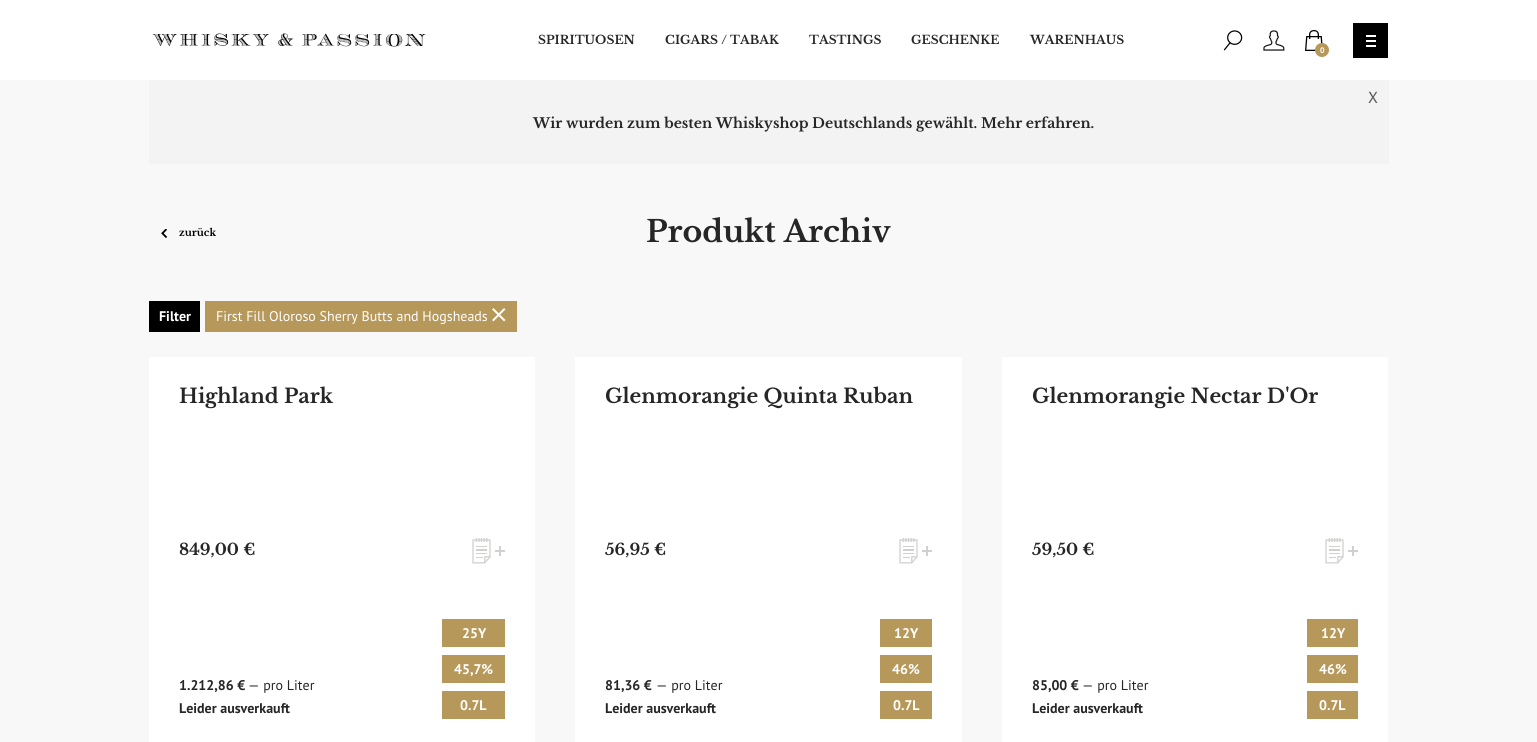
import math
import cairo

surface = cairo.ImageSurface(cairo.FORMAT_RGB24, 1537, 742)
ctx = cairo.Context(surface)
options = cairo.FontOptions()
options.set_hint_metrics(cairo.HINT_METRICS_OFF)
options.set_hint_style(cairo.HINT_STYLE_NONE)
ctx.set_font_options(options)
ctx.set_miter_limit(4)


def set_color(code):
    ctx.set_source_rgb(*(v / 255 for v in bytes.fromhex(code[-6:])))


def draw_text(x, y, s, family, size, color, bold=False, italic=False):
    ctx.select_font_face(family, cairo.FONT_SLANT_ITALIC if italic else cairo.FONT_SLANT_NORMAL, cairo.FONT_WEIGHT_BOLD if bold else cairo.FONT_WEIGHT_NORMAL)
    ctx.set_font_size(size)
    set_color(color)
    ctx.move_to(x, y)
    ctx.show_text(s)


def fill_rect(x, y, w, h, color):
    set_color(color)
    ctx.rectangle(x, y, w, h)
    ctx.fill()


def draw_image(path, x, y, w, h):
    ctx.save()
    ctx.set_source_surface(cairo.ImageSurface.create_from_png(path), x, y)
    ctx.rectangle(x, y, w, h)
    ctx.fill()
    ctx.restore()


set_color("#f8f8f8")
ctx.paint()
fill_rect(0, 0, 1537, 80, "#ffffff")
draw_image("assets/img1.png", 152, 33, 274, 14)
draw_text(538, 44, "SPIRITUOSEN", "Libre Baskerville", 12, "#262626", bold=True)
draw_text(665, 44, "CIGARS / TABAK", "Libre Baskerville", 12, "#262626", bold=True)
draw_text(809, 44, "TASTINGS", "Libre Baskerville", 12, "#262626", bold=True)
draw_text(911, 44, "GESCHENKE", "Libre Baskerville", 12, "#262626", bold=True)
draw_text(1030, 44, "WARENHAUS", "Libre Baskerville", 12, "#262626", bold=True)
draw_image("assets/img2.png", 1223, 30, 20, 21)
draw_image("assets/img3.png", 1263, 30, 22, 21)
draw_image("assets/img4.png", 1305, 30, 18, 21)
set_color("#b6985a")
ctx.arc(1322, 50, 7, 0, 2 * math.pi)
ctx.fill()
draw_text(1320, 53, "0", "PT Sans", 8, "#ffffff", bold=True)
fill_rect(1353, 23, 35, 35, "#000000")
fill_rect(1366, 40, 10, 2, "#ffffff")
fill_rect(1366, 35, 10, 2, "#ffffff")
fill_rect(1366, 45, 10, 2, "#ffffff")
fill_rect(149, 80, 1240, 84, "#f4f3f3")
draw_text(1368, 103, "X", "PT Sans", 16, "#555555")
draw_text(533, 128, "Wir wurden zum besten Whiskyshop Deutschlands gewählt. Mehr erfahren.", "Libre Baskerville", 14, "#262626", bold=True)
draw_image("assets/img5.png", 161, 229, 7, 9)
draw_text(179, 236, "zurück", "Libre Baskerville", 10, "#000000", bold=True)
draw_text(646, 242, "Produkt Archiv", "Libre Baskerville", 30, "#262626", bold=True)
fill_rect(149, 301, 51, 31, "#000000")
draw_text(159, 321, "Filter", "PT Sans", 14, "#ffffff", bold=True)
fill_rect(205, 301, 312, 31, "#b6985a")
draw_text(216, 321, "First Fill Oloroso Sherry Butts and Hogsheads", "PT Sans", 14, "#ffffff")
draw_image("assets/img6.png", 492, 308, 14, 14)
fill_rect(149, 357, 386, 385, "#ffffff")
draw_text(179, 403, "Highland Park", "Libre Baskerville", 20, "#262626", bold=True)
draw_text(179, 555, "849,00 €", "Libre Baskerville", 16, "#262626", bold=True)
draw_image("assets/img7.png", 472, 538, 33, 26)
draw_text(179, 690, "1.212,86 €", "PT Sans", 14, "#262626", bold=True)
draw_text(248, 690, "— pro Liter", "PT Sans", 14, "#262626")
fill_rect(442, 619, 63, 28, "#b6985a")
draw_text(462, 638, "25Y", "PT Sans", 14, "#ffffff", bold=True)
fill_rect(442, 655, 63, 28, "#b6985a")
draw_text(454, 674, "45,7%", "PT Sans", 14, "#ffffff", bold=True)
fill_rect(442, 691, 63, 28, "#b6985a")
draw_text(460, 710, "0.7L", "PT Sans", 14, "#ffffff", bold=True)
draw_text(179, 713, "Leider ausverkauft", "PT Sans", 14, "#262626", bold=True)
fill_rect(575, 357, 387, 385, "#ffffff")
draw_text(605, 403, "Glenmorangie Quinta Ruban", "Libre Baskerville", 20, "#262626", bold=True)
draw_text(605, 555, "56,95 €", "Libre Baskerville", 16, "#262626", bold=True)
draw_image("assets/img7.png", 899, 538, 33, 26)
draw_text(605, 690, "81,36 €", "PT Sans", 14, "#262626", bold=True)
draw_text(656, 690, "— pro Liter", "PT Sans", 14, "#262626")
fill_rect(880, 619, 52, 28, "#b6985a")
draw_text(894, 638, "12Y", "PT Sans", 14, "#ffffff", bold=True)
fill_rect(880, 655, 52, 28, "#b6985a")
draw_text(892, 674, "46%", "PT Sans", 14, "#ffffff", bold=True)
fill_rect(880, 691, 52, 28, "#b6985a")
draw_text(893, 710, "0.7L", "PT Sans", 14, "#ffffff", bold=True)
draw_text(605, 713, "Leider ausverkauft", "PT Sans", 14, "#262626", bold=True)
fill_rect(1002, 357, 386, 385, "#ffffff")
draw_text(1032, 403, "Glenmorangie Nectar D'Or", "Libre Baskerville", 20, "#262626", bold=True)
draw_text(1032, 555, "59,50 €", "Libre Baskerville", 16, "#262626", bold=True)
draw_image("assets/img7.png", 1325, 538, 33, 26)
draw_text(1032, 690, "85,00 €", "PT Sans", 14, "#262626", bold=True)
draw_text(1082, 690, "— pro Liter", "PT Sans", 14, "#262626")
fill_rect(1307, 619, 51, 28, "#b6985a")
draw_text(1321, 638, "12Y", "PT Sans", 14, "#ffffff", bold=True)
fill_rect(1307, 655, 51, 28, "#b6985a")
draw_text(1319, 674, "46%", "PT Sans", 14, "#ffffff", bold=True)
fill_rect(1307, 691, 51, 28, "#b6985a")
draw_text(1319, 710, "0.7L", "PT Sans", 14, "#ffffff", bold=True)
draw_text(1032, 713, "Leider ausverkauft", "PT Sans", 14, "#262626", bold=True)
surface.write_to_png("output.png")
